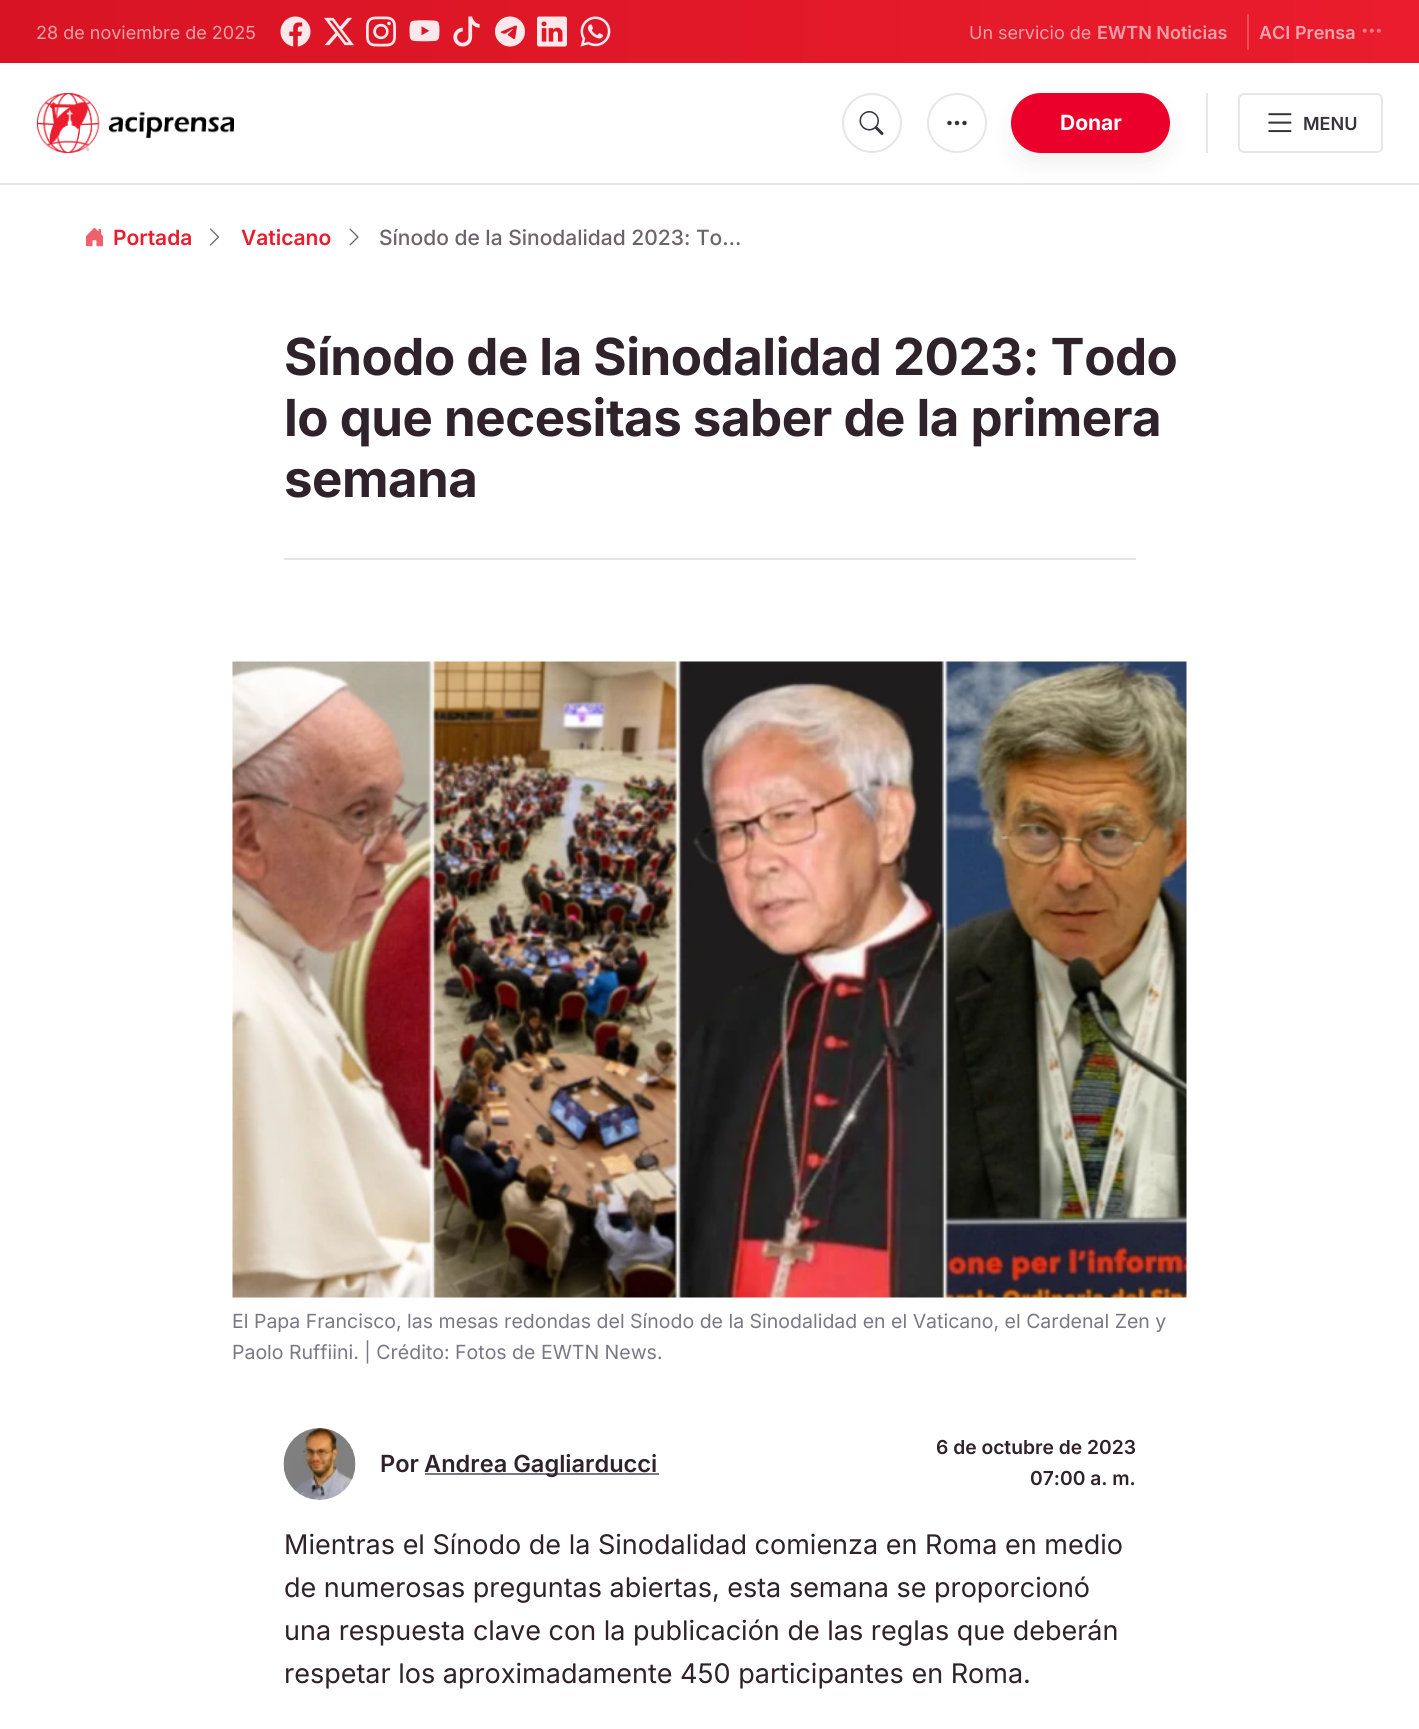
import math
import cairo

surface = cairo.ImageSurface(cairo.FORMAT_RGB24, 1419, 1729)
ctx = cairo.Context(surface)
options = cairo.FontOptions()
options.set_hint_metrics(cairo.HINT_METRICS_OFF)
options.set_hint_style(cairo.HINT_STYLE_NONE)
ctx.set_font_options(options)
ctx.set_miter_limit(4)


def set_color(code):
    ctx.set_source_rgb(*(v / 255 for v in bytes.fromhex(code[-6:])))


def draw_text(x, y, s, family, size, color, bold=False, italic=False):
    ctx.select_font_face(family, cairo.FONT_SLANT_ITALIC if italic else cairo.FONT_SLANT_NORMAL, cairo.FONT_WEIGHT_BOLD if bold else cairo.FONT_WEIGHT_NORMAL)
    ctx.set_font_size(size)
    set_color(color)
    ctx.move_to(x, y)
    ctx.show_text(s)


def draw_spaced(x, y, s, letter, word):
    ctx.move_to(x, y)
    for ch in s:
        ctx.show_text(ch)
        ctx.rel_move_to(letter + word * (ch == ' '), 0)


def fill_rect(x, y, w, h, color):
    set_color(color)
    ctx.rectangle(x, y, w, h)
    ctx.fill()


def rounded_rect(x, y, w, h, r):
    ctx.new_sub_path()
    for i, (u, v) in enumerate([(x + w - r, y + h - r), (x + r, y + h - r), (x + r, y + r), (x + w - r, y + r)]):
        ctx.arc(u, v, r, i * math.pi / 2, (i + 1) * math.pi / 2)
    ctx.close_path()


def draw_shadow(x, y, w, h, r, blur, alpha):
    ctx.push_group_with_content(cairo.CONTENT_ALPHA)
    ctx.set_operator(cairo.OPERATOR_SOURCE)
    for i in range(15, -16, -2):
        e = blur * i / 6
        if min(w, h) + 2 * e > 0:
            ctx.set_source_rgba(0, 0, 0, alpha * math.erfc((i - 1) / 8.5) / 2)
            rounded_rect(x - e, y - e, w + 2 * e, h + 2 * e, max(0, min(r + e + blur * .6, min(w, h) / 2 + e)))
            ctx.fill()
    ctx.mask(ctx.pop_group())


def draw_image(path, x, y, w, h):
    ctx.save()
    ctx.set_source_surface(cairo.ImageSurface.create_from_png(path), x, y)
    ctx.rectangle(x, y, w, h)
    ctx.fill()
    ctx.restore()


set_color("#ffffff")
ctx.paint()
fill_rect(0, 183, 1419, 2, "#e7e5e9")
gradient = cairo.LinearGradient(1419, 31, 0, 32)
gradient.add_color_stop_rgba(0, 0.918, 0.11, 0.176, 1)
gradient.add_color_stop_rgba(1, 0.847, 0.078, 0.141, 1)
ctx.set_source(gradient)
ctx.rectangle(0, 0, 1419, 63)
ctx.fill()
draw_text(36, 39, "28 de noviembre de 2025", "Inter", 18, "#f0a1a8")
draw_image("assets/img1.png", 280, 16, 31, 31)
draw_image("assets/img2.png", 324, 17, 30, 29)
draw_image("assets/img3.png", 366, 16, 30, 31)
draw_image("assets/img4.png", 409, 20, 31, 22)
draw_image("assets/img5.png", 453, 16, 27, 31)
draw_image("assets/img6.png", 495, 16, 30, 31)
draw_image("assets/img7.png", 537, 16, 30, 31)
draw_image("assets/img8.png", 580, 16, 31, 31)
draw_text(969, 39, "Un servicio de", "Inter", 18, "#f0a1a8")
draw_text(1097, 39, "EWTN Noticias", "Inter SemiBold", 18, "#f0a1a8")
fill_rect(1247, 14, 2, 36, "#ed4956")
draw_text(1259, 39, "ACI Prensa", "Inter SemiBold", 18, "#f6a4ab")
draw_image("assets/img9.png", 1362, 28, 19, 5)
draw_image("assets/img10.png", 36, 93, 198, 60)
ctx.arc(872, 123, 29, 0, 2 * math.pi)
set_color("#e7e5e9")
ctx.stroke()
draw_image("assets/img11.png", 859, 111, 25, 24)
set_color("#000000")
draw_shadow(1020, 114, 141, 42, 21, 15, 0.1)
ctx.arc(957, 123, 29, 0, 2 * math.pi)
set_color("#e7e5e9")
ctx.stroke()
draw_image("assets/img12.png", 947, 120, 20, 6)
set_color("#ea002a")
rounded_rect(1011, 93, 159, 60, 30)
ctx.fill()
draw_text(1060, 130, "Donar", "Inter", 21, "#ffffff", bold=True)
fill_rect(1206, 93, 2, 60, "#e7e5e9")
rounded_rect(1239, 94, 143, 58, 5)
ctx.stroke()
draw_image("assets/img13.png", 1268, 113, 24, 20)
draw_text(1303, 130, "MENU", "Inter SemiBold", 18, "#38323c")
draw_image("assets/img14.png", 85, 227, 19, 20)
draw_text(113, 245, "Portada", "Inter SemiBold", 21, "#ea1c2d")
draw_image("assets/img15.png", 210, 228, 9, 18)
draw_text(241, 245, "Vaticano", "Inter SemiBold", 21, "#ea1c2d")
draw_image("assets/img16.png", 349, 228, 10, 18)
draw_text(379, 245, "Sínodo de la Sinodalidad 2023: To…", "Inter Medium", 21, "#6d646a")
ctx.select_font_face("Inter", cairo.FONT_SLANT_NORMAL, cairo.FONT_WEIGHT_BOLD)
ctx.set_font_size(51)
set_color("#2f222a")
draw_spaced(284, 375, "Sínodo de la Sinodalidad 2023: Todo", -0.5, 0)
draw_spaced(284, 436, "lo que necesitas saber de la primera", -0.5, 0)
draw_spaced(284, 497, "semana", -0.5, 0)
fill_rect(284, 558, 852, 2, "#e7e5e9")
draw_image("assets/img17.png", 232, 661, 955, 637)
draw_text(232, 1328, "El Papa Francisco, las mesas redondas del Sínodo de la Sinodalidad en el Vaticano, el Cardenal Zen y", "Inter", 19.5, "#797885")
draw_text(232, 1359, "Paolo Ruffiini. | Crédito: Fotos de EWTN News.", "Inter", 19.5, "#797885")
draw_image("assets/img18.png", 283, 1428, 73, 72)
draw_text(380, 1472, "Por", "Inter SemiBold", 23.6, "#2f222a")
fill_rect(425, 1473, 234, 2, "#797885")
draw_text(424, 1472, "Andrea Gagliarducci", "Inter SemiBold", 23.6, "#2f222a")
draw_text(936, 1454, "6 de octubre de 2023", "Inter SemiBold", 19.25, "#2f222a")
draw_text(1030, 1485, "07:00 a. m.", "Inter SemiBold", 19.25, "#2f222a")
draw_text(284, 1554, "Mientras el Sínodo de la Sinodalidad comienza en Roma en medio", "Inter", 27, "#2f222a")
draw_text(284, 1597, "de numerosas preguntas abiertas, esta semana se proporcionó", "Inter", 27, "#2f222a")
draw_text(284, 1640, "una respuesta clave con la publicación de las reglas que deberán", "Inter", 27, "#2f222a")
draw_text(284, 1683, "respetar los aproximadamente 450 participantes en Roma.", "Inter", 27, "#2f222a")
surface.write_to_png("output.png")
